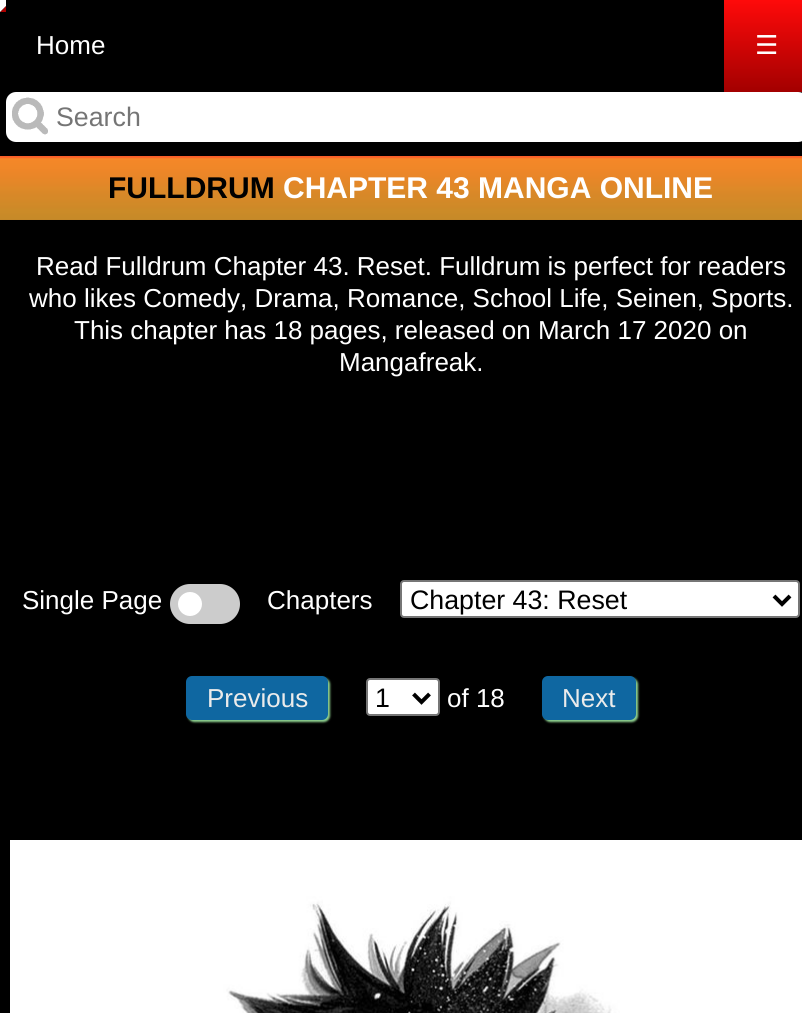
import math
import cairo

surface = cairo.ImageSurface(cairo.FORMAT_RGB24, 802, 1013)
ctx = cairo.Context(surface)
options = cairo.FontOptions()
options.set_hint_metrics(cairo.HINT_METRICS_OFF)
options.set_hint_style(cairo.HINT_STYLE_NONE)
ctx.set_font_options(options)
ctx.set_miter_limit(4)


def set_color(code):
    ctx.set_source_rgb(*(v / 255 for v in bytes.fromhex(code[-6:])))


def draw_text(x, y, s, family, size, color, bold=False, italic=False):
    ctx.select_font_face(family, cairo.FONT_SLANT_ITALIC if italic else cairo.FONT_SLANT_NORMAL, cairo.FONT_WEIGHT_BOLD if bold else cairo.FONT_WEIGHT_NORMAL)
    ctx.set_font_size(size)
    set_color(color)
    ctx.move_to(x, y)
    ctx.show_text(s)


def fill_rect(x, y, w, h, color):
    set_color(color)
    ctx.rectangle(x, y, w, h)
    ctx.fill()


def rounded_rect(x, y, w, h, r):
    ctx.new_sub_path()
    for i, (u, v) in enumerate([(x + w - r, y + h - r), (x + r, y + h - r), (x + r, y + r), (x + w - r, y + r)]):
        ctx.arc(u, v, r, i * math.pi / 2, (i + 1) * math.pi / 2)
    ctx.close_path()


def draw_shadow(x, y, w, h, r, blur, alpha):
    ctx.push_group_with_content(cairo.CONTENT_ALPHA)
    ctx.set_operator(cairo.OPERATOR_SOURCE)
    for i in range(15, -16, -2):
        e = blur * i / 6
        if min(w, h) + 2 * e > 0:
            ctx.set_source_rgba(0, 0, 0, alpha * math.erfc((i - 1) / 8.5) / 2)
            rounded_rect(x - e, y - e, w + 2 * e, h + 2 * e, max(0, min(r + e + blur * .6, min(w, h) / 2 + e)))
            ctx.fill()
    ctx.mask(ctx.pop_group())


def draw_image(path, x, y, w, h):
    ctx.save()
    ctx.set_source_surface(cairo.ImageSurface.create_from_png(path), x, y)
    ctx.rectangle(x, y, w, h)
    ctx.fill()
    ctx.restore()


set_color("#000000")
ctx.paint()
fill_rect(0, 0, 6, 6, "#ffffff")
set_color("#aa0000")
ctx.new_path()
ctx.move_to(802, 12)
ctx.line_to(0, 12)
ctx.line_to(6, 6)
ctx.line_to(796, 6)
ctx.close_path()
ctx.fill()
set_color("#ffffff")
ctx.new_path()
ctx.move_to(0, 12)
ctx.line_to(0, 0)
ctx.line_to(6, 6)
ctx.close_path()
ctx.fill()
fill_rect(6, 6, 796, 6, "#000000")
draw_text(36, 54, "Home", "Liberation Sans", 26, "#ffffff")
gradient = cairo.LinearGradient(766, 0, 766, 92)
gradient.add_color_stop_rgba(0, 1, 0.039, 0.039, 1)
gradient.add_color_stop_rgba(1, 0.639, 0, 0, 1)
ctx.set_source(gradient)
ctx.rectangle(724, 0, 78, 92)
ctx.fill()
draw_text(755, 54, "☰", "DejaVu Sans", 26, "#ffffff")
rounded_rect(6, 92, 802, 50, 10)
ctx.fill()
draw_image("assets/img1.png", 12, 97, 36, 38)
draw_text(56, 126, "Search", "Liberation Sans", 26.75, "#757575")
draw_image("assets/img2.png", 0, 156, 802, 64)
draw_text(108, 198, "FULLDRUM", "Liberation Sans", 30, "#000000", bold=True)
draw_text(283, 198, "CHAPTER 43 MANGA ONLINE", "Liberation Sans", 30, "#ffffff", bold=True)
draw_text(36, 275, "Read Fulldrum Chapter 43. Reset. Fulldrum is perfect for readers", "Liberation Sans", 26, "#ffffff")
draw_text(29, 307, "who likes Comedy, Drama, Romance, School Life, Seinen, Sports.", "Liberation Sans", 26, "#ffffff")
draw_text(74, 339, "This chapter has 18 pages, released on March 17 2020 on", "Liberation Sans", 26, "#ffffff")
draw_text(339, 371, "Mangafreak.", "Liberation Sans", 26, "#ffffff")
draw_text(22, 609, "Single Page", "Liberation Sans", 26, "#ffffff")
set_color("#cccccc")
rounded_rect(170, 584, 70, 40, 20)
ctx.fill()
set_color("#ffffff")
ctx.arc(190, 604, 12, 0, 2 * math.pi)
ctx.fill()
draw_text(267, 609, "Chapters", "Liberation Sans", 26, "#ffffff")
rounded_rect(401, 581, 398, 36, 3)
ctx.fill_preserve()
set_color("#767676")
ctx.stroke()
ctx.new_path()
ctx.move_to(774, 596)
ctx.line_to(782, 604)
ctx.line_to(790, 596)
set_color("#000000")
ctx.set_line_width(4)
ctx.stroke()
draw_text(410, 609, "Chapter 43: Reset", "Liberation Sans", 26.75, "#000000")
set_color("#8dd08f")
draw_shadow(188, 678, 142, 44, 6, 1, 1)
set_color("#0f67a1")
rounded_rect(186, 676, 142, 44, 6)
ctx.fill()
draw_text(207, 707, "Previous", "Liberation Sans", 26, "#ebebeb")
set_color("#ffffff")
rounded_rect(367, 679, 72, 36, 3)
ctx.fill_preserve()
set_color("#767676")
ctx.set_line_width(2)
ctx.stroke()
ctx.new_path()
ctx.move_to(413.5, 694)
ctx.line_to(421.5, 702)
ctx.line_to(429.5, 694)
set_color("#000000")
ctx.set_line_width(4)
ctx.stroke()
draw_text(375, 707, "1", "Liberation Sans", 26.75, "#000000")
draw_text(447, 707, "of 18", "Liberation Sans", 26, "#ffffff")
set_color("#8dd08f")
draw_shadow(544, 678, 94, 44, 6, 1, 1)
set_color("#0f67a1")
rounded_rect(542, 676, 94, 44, 6)
ctx.fill()
draw_text(562, 707, "Next", "Liberation Sans", 26, "#ebebeb")
draw_image("assets/img3.png", 10, 840, 792, 173)
surface.write_to_png("output.png")
